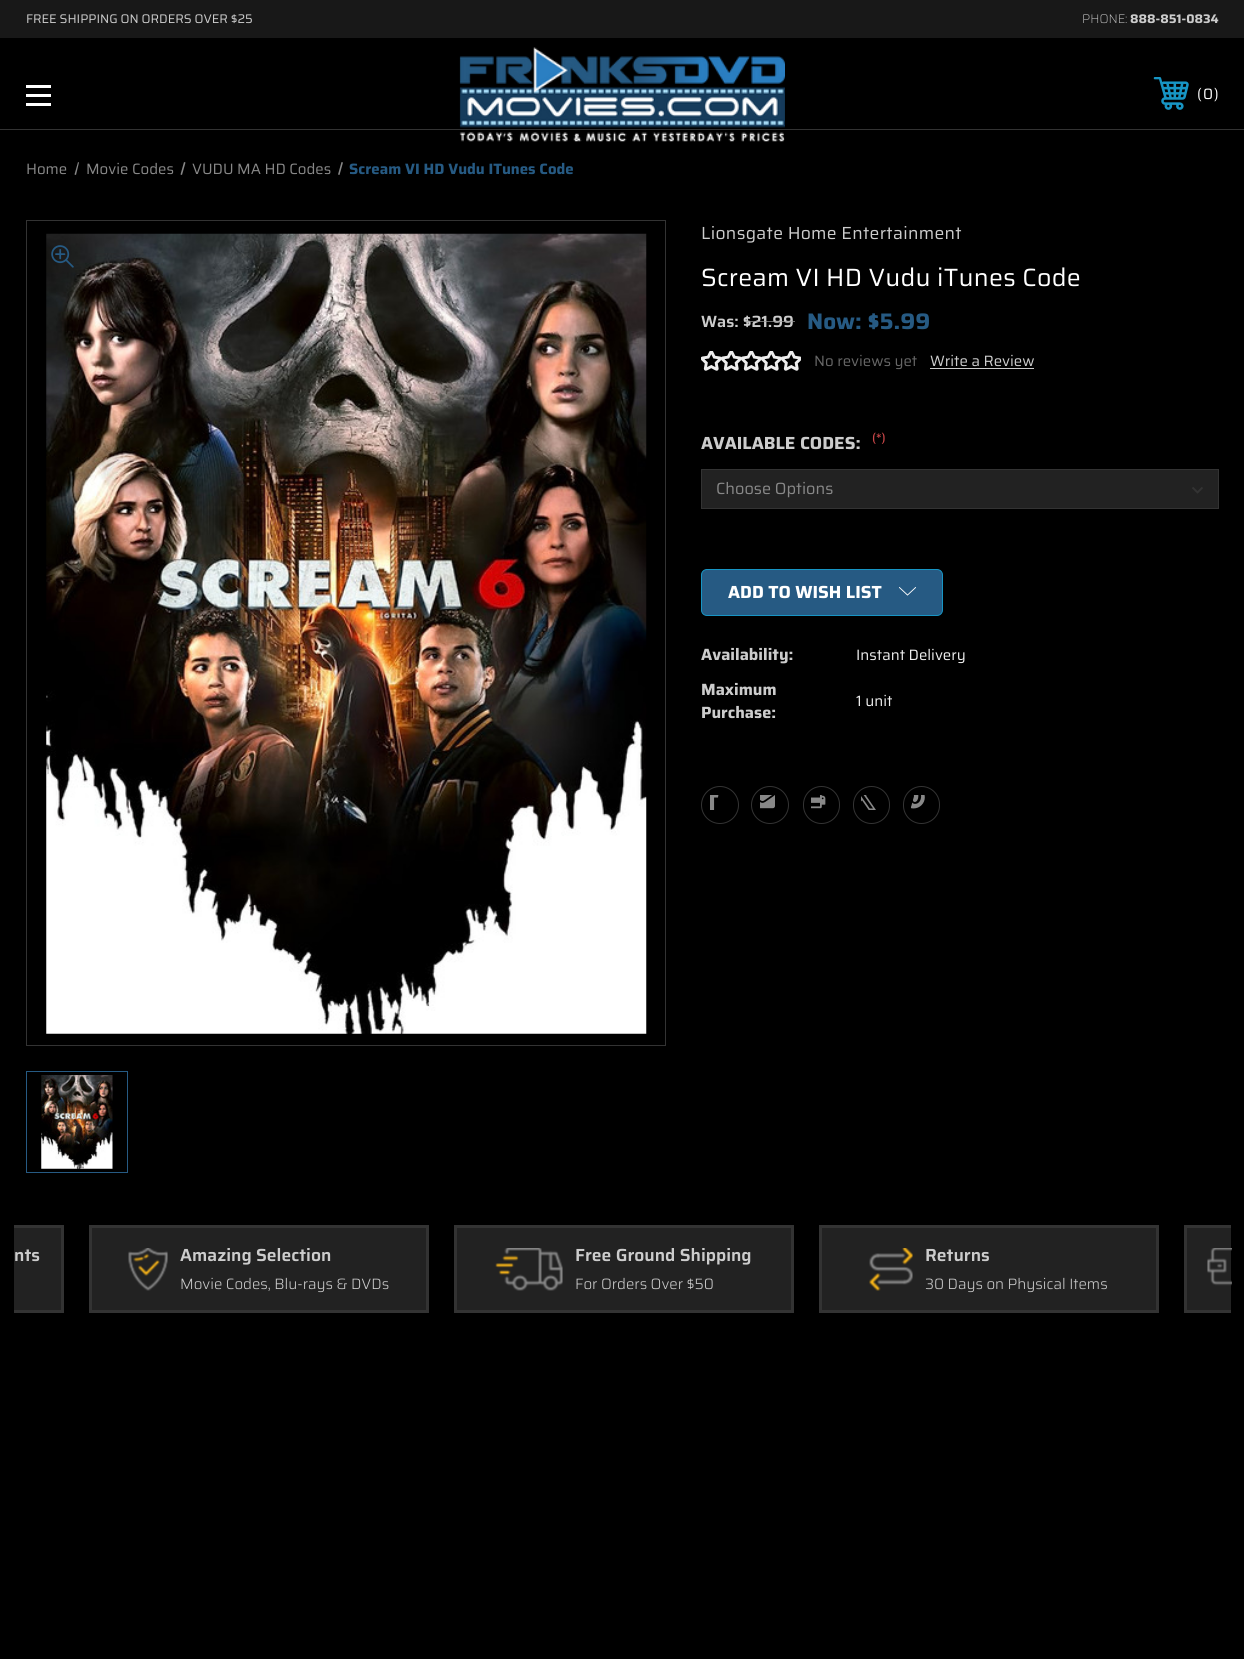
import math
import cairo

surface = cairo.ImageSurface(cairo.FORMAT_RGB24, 1244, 1659)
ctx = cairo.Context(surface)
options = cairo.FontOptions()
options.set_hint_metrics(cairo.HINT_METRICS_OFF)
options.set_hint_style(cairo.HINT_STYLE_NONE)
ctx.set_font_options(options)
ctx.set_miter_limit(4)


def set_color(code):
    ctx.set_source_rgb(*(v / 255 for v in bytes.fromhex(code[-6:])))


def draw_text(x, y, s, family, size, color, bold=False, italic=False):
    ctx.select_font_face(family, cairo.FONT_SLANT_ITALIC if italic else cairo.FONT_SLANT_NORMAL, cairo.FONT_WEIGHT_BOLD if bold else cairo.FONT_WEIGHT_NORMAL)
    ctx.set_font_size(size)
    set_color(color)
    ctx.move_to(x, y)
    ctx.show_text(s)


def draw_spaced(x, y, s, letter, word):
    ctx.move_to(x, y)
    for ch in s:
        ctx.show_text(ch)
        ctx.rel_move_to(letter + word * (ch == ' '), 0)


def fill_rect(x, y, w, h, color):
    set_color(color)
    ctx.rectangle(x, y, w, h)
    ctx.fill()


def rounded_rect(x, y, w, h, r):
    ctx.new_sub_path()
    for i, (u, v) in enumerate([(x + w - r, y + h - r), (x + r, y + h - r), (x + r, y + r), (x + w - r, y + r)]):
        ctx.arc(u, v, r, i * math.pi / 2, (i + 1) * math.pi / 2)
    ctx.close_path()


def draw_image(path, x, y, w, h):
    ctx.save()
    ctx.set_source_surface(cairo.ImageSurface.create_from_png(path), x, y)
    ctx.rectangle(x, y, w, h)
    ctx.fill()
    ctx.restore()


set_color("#000000")
ctx.paint()
fill_rect(0, 0, 1244, 38, "#181818")
draw_text(26, 23, "FREE SHIPPING ON ORDERS OVER $25", "Saira", 12.5, "#cccccc")
draw_text(1082, 23, "PHONE:", "Saira ExtraLight", 12.5, "#cccccc")
draw_text(1130, 23, "888-851-0834", "Saira", 12.5, "#cccccc", bold=True)
fill_rect(0, 129, 1244, 1, "#333333")
fill_rect(26, 94, 25, 3, "#ffffff")
fill_rect(26, 85, 25, 3, "#ffffff")
fill_rect(26, 103, 25, 3, "#ffffff")
draw_image("assets/img1.png", 459, 47, 326, 95)
draw_image("assets/img2.png", 1153, 77, 36, 33)
draw_text(1197, 99, "(", "Saira", 15, "#ffffff")
draw_text(1203, 99, "0", "Saira", 15, "#ffffff")
draw_text(1214, 99, ")", "Saira", 15, "#ffffff")
draw_text(26, 174, "Home", "Saira", 15, "#888888")
ctx.new_path()
ctx.move_to(78, 162)
ctx.line_to(79, 162.5)
ctx.line_to(76, 175)
ctx.line_to(74.5, 174.5)
ctx.close_path()
ctx.fill()
draw_text(86, 174, "Movie Codes", "Saira", 15, "#888888")
ctx.new_path()
ctx.move_to(184, 162)
ctx.line_to(185.5, 162.5)
ctx.line_to(182, 175)
ctx.line_to(180.5, 174.5)
ctx.close_path()
ctx.fill()
draw_text(192, 174, "VUDU MA HD Codes", "Saira", 15, "#888888")
ctx.new_path()
ctx.move_to(341.5, 162)
ctx.line_to(343, 162.5)
ctx.line_to(339.5, 175)
ctx.line_to(338, 174.5)
ctx.close_path()
ctx.fill()
draw_text(349, 174, "Scream VI HD Vudu ITunes Code", "Saira", 15, "#265a83", bold=True)
ctx.rectangle(26.5, 220.5, 639, 825)
set_color("#333333")
ctx.set_line_width(1)
ctx.stroke()
draw_image("assets/img3.png", 46, 233, 601, 801)
draw_image("assets/img4.png", 51, 245, 23, 23)
ctx.rectangle(26.5, 1071.5, 101, 101)
set_color("#265a83")
ctx.stroke()
draw_image("assets/img5.png", 41, 1075, 72, 94)
ctx.select_font_face("Saira")
ctx.set_font_size(17.5)
set_color("#cccccc")
draw_spaced(701, 239, "Lionsgate Home Entertainment", 0.3, 0)
ctx.set_font_size(25)
set_color("#ffffff")
draw_spaced(701, 286, "Scream VI HD Vudu iTunes Code", 0.3, 0)
draw_text(701, 327, "Was: $21.99", "Saira SemiBold", 16.25, "#cccccc")
ctx.set_source_rgba(0.6, 0.6, 0.6, 0.7)
ctx.rectangle(744, 321, 51, 1)
ctx.fill()
draw_text(807, 329, "Now: $5.99", "Saira", 22.5, "#265a83", bold=True)
draw_image("assets/img6.png", 701, 351, 20, 20)
draw_image("assets/img6.png", 721, 351, 20, 20)
draw_image("assets/img6.png", 741, 351, 20, 20)
draw_image("assets/img6.png", 761, 351, 20, 20)
draw_image("assets/img6.png", 781, 351, 20, 20)
draw_text(814, 366, "No reviews yet", "Saira", 15, "#666666")
draw_text(930, 366, "Write a Review", "Saira", 15, "#cccccc")
fill_rect(930, 368, 104, 1, "#cccccc")
draw_text(701, 449, "AVAILABLE CODES:", "Saira", 17.5, "#cccccc", bold=True)
draw_text(872, 442, "(*)", "Saira Medium", 12.5, "#cc4749")
fill_rect(702, 470, 516, 38, "#222222")
draw_image("assets/img7.png", 1192, 487, 11, 7)
ctx.rectangle(701.5, 469.5, 517, 39)
set_color("#333333")
ctx.stroke()
draw_text(716, 494, "Choose Options", "Saira", 16.25, "#888888")
set_color("#265a83")
rounded_rect(701.5, 569.5, 241, 46, 5.5)
ctx.fill_preserve()
set_color("#1795c4")
ctx.stroke()
draw_text(728, 598, "ADD TO WISH LIST", "Saira", 17.5, "#ffffff", bold=True)
draw_image("assets/img8.png", 899, 587, 17, 9)
draw_text(701, 660, "Availability:", "Saira", 16.25, "#cccccc", bold=True)
draw_text(856, 660, "Instant Delivery", "Saira", 15, "#eeeeee")
draw_text(701, 695, "Maximum", "Saira", 16.25, "#cccccc", bold=True)
draw_text(701, 718, "Purchase:", "Saira", 16.25, "#cccccc", bold=True)
draw_text(856, 706, "1 unit", "Saira", 15, "#eeeeee")
ctx.new_path()
ctx.arc(720, 805, 18.5, 0, 2 * math.pi)
set_color("#333333")
ctx.stroke()
draw_image("assets/img9.png", 710, 795, 9, 15)
ctx.arc(770, 805, 18.5, 0, 2 * math.pi)
ctx.stroke()
draw_image("assets/img10.png", 760, 795, 15, 14)
rounded_rect(803.5, 786.5, 36, 37, 18)
ctx.stroke()
draw_image("assets/img11.png", 811, 795, 15, 14)
rounded_rect(853.5, 786.5, 36, 37, 18)
ctx.stroke()
draw_image("assets/img12.png", 861, 795, 15, 15)
rounded_rect(903.5, 786.5, 36, 37, 18)
ctx.stroke()
draw_image("assets/img13.png", 911, 795, 14, 14)
fill_rect(14, 1228, 47, 82, "#222222")
ctx.save()
ctx.rectangle(14, 1225, 1217, 88)
ctx.clip()
ctx.rectangle(-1.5, 1226.5, 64, 85)
set_color("#333333")
ctx.set_line_width(3)
ctx.stroke()
ctx.restore()
draw_text(14, 1261, "nts", "Saira SemiBold", 17.5, "#cccccc")
set_color("#222222")
ctx.rectangle(90.5, 1226.5, 337, 85)
ctx.fill_preserve()
set_color("#333333")
ctx.set_line_width(3)
ctx.stroke()
draw_image("assets/img14.png", 128, 1248, 40, 43)
draw_text(180, 1261, "Amazing Selection", "Saira SemiBold", 17.5, "#cccccc")
draw_text(180, 1289, "Movie Codes, Blu-rays & DVDs", "Saira Light", 15, "#cccccc")
set_color("#222222")
ctx.rectangle(455.5, 1226.5, 337, 85)
ctx.fill_preserve()
set_color("#333333")
ctx.stroke()
draw_image("assets/img15.png", 495, 1248, 68, 43)
draw_text(575, 1261, "Free Ground Shipping", "Saira SemiBold", 17.5, "#cccccc")
draw_text(575, 1289, "For Orders Over $50", "Saira Light", 15, "#cccccc")
set_color("#222222")
ctx.rectangle(820.5, 1226.5, 337, 85)
ctx.fill_preserve()
set_color("#333333")
ctx.stroke()
draw_image("assets/img16.png", 869, 1248, 44, 43)
draw_text(925, 1261, "Returns", "Saira SemiBold", 17.5, "#cccccc")
draw_text(925, 1289, "30 Days on Physical Items", "Saira Light", 15, "#cccccc")
fill_rect(1187, 1228, 44, 82, "#222222")
ctx.save()
ctx.rectangle(14, 1225, 1217, 88)
ctx.clip()
ctx.rectangle(1185.5, 1226.5, 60, 85)
set_color("#333333")
ctx.stroke()
ctx.restore()
draw_image("assets/img17.png", 1207, 1248, 25, 38)
surface.write_to_png("output.png")
